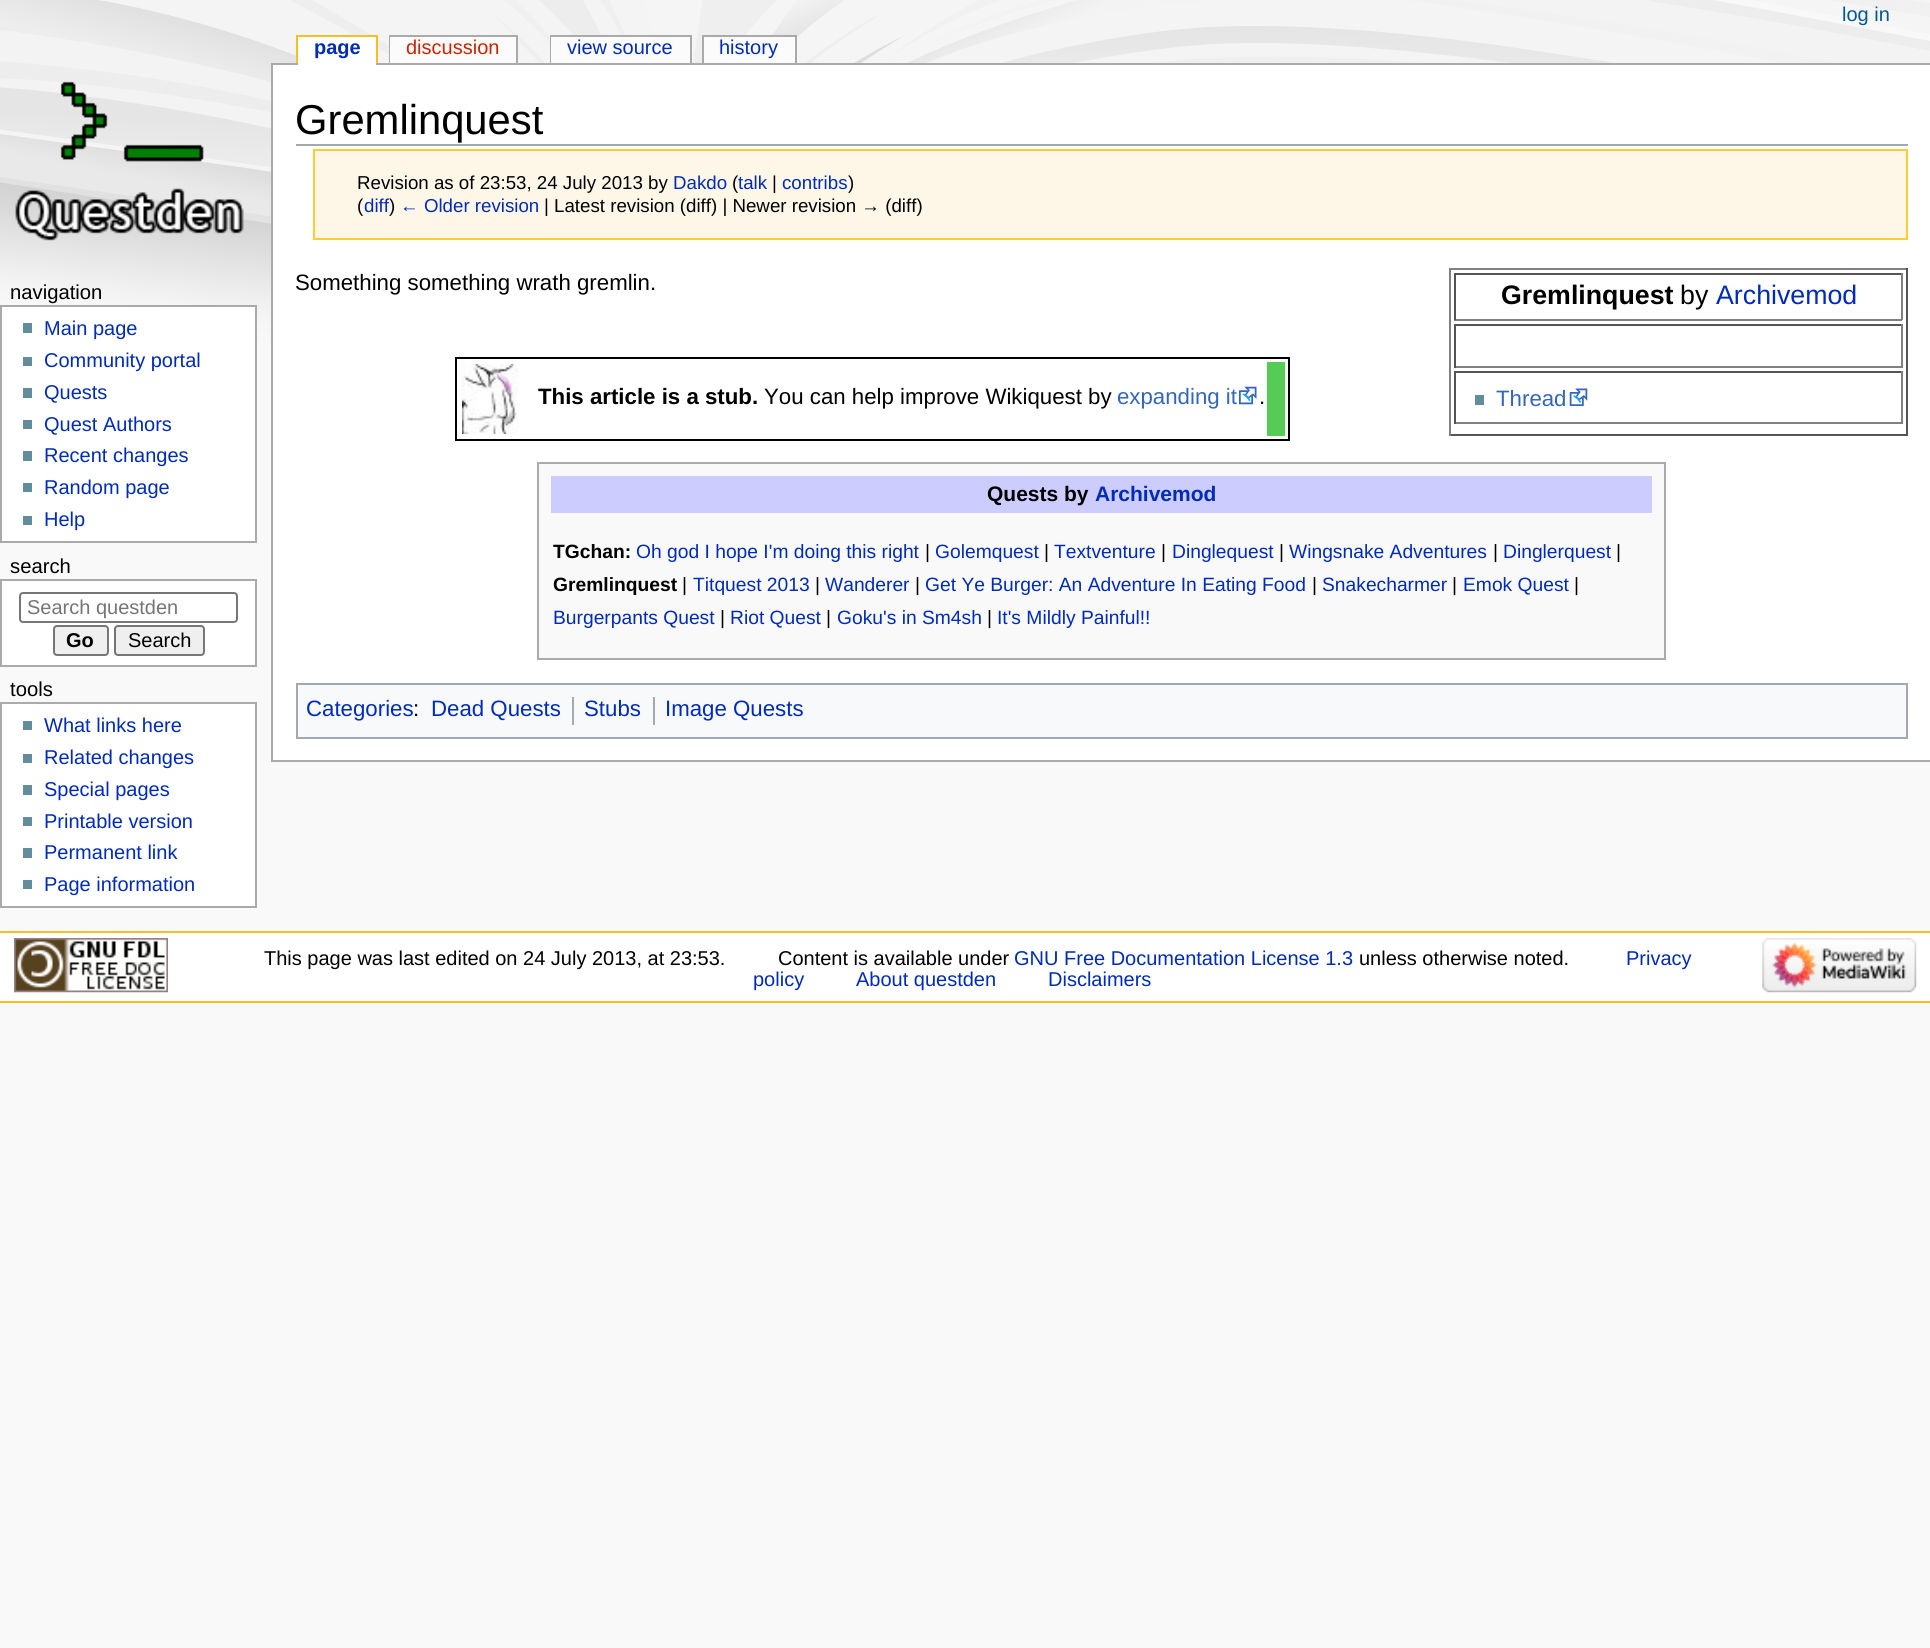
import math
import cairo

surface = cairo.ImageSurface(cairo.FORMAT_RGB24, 1930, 1648)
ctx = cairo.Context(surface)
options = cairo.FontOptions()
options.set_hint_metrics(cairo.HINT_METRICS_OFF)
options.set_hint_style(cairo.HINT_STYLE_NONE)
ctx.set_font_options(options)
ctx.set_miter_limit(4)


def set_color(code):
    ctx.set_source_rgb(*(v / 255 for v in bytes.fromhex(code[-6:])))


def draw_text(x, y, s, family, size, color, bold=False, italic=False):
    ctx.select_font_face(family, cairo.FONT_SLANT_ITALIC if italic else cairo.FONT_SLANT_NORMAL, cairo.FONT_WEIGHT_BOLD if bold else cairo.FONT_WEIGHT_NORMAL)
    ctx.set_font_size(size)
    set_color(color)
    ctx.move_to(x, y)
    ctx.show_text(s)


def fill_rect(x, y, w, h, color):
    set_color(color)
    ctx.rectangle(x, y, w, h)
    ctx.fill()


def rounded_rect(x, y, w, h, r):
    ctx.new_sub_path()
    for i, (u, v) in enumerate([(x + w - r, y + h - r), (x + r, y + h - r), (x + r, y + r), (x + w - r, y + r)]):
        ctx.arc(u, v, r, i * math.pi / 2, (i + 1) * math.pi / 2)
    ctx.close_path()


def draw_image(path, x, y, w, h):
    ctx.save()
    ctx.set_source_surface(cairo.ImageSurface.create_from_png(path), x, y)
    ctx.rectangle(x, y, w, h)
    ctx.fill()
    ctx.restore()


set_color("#f9f9f9")
ctx.paint()
draw_image("assets/img1.png", 0, 0, 1930, 367)
draw_text(1842, 21, "log in", "Liberation Sans", 20, "#005896")
fill_rect(271, 63, 1659, 2, "#aaaaaa")
fill_rect(298, 37, 78, 28, "#ffffff")
draw_text(314, 54, "page", "Liberation Sans", 20, "#002bb8", bold=True)
fill_rect(296, 35, 82, 2, "#fabd23")
fill_rect(376, 35, 2, 28, "#fabd23")
fill_rect(296, 35, 2, 28, "#fabd23")
fill_rect(389, 35, 129, 2, "#aaaaaa")
fill_rect(389, 35, 2, 28, "#aaaaaa")
fill_rect(390, 37, 126, 26, "#fbfbfb")
draw_text(406, 54, "discussion", "Liberation Sans", 20, "#cc2200")
fill_rect(516, 35, 2, 28, "#aaaaaa")
fill_rect(550, 35, 141, 2, "#aaaaaa")
fill_rect(550, 35, 2, 28, "#aaaaaa")
fill_rect(551, 37, 139, 26, "#fbfbfb")
draw_text(567, 54, "view source", "Liberation Sans", 20, "#002bb8")
fill_rect(690, 35, 2, 28, "#aaaaaa")
fill_rect(704, 37, 91, 26, "#fbfbfb")
draw_text(719, 54, "history", "Liberation Sans", 20, "#002bb8")
fill_rect(702, 35, 94, 2, "#aaaaaa")
fill_rect(795, 35, 2, 28, "#aaaaaa")
fill_rect(702, 35, 2, 28, "#aaaaaa")
draw_image("assets/img2.png", 15, 81, 229, 160)
draw_text(10, 299, "navigation", "Liberation Sans", 20.25, "#000000")
set_color("#ffffff")
ctx.rectangle(1, 306, 255, 236)
ctx.fill_preserve()
set_color("#aaaaaa")
ctx.stroke()
fill_rect(23, 323, 9, 10, "#638c9c")
draw_text(44, 335, "Main page", "Liberation Sans", 20, "#002bb8")
fill_rect(23, 357, 9, 9, "#638c9c")
draw_text(44, 367, "Community portal", "Liberation Sans", 20, "#002bb8")
fill_rect(23, 388, 9, 10, "#638c9c")
draw_text(44, 399, "Quests", "Liberation Sans", 20, "#002bb8")
fill_rect(23, 420, 9, 9, "#638c9c")
draw_text(44, 431, "Quest Authors", "Liberation Sans", 20, "#002bb8")
fill_rect(23, 451, 9, 10, "#638c9c")
draw_text(44, 462, "Recent changes", "Liberation Sans", 20, "#002bb8")
fill_rect(23, 483, 9, 9, "#638c9c")
draw_text(44, 494, "Random page", "Liberation Sans", 20, "#002bb8")
fill_rect(23, 516, 9, 9, "#638c9c")
draw_text(44, 526, "Help", "Liberation Sans", 20, "#002bb8")
draw_text(10, 573, "search", "Liberation Sans", 20.25, "#000000")
set_color("#ffffff")
ctx.rectangle(1, 580, 255, 86)
ctx.fill_preserve()
set_color("#aaaaaa")
ctx.stroke()
rounded_rect(20, 593, 217, 29, 3)
set_color("#767676")
ctx.stroke()
draw_text(27, 614, "Search questden", "Liberation Sans", 20, "#757575")
set_color("#efefef")
rounded_rect(54, 626, 54, 29, 3)
ctx.fill_preserve()
set_color("#767676")
ctx.stroke()
draw_text(66, 647, "Go", "Liberation Sans", 20, "#000000", bold=True)
set_color("#efefef")
rounded_rect(115, 626, 89, 29, 3)
ctx.fill_preserve()
set_color("#767676")
ctx.stroke()
draw_text(128, 647, "Search", "Liberation Sans", 20, "#000000")
draw_text(10, 696, "tools", "Liberation Sans", 20.25, "#000000")
set_color("#ffffff")
ctx.rectangle(1, 703, 255, 204)
ctx.fill_preserve()
set_color("#aaaaaa")
ctx.stroke()
fill_rect(23, 721, 9, 9, "#638c9c")
draw_text(44, 732, "What links here", "Liberation Sans", 20, "#002bb8")
fill_rect(23, 754, 9, 9, "#638c9c")
draw_text(44, 764, "Related changes", "Liberation Sans", 20, "#002bb8")
fill_rect(23, 785, 9, 10, "#638c9c")
draw_text(44, 796, "Special pages", "Liberation Sans", 20, "#002bb8")
fill_rect(23, 817, 9, 9, "#638c9c")
draw_text(44, 828, "Printable version", "Liberation Sans", 20, "#002bb8")
fill_rect(23, 848, 9, 10, "#638c9c")
draw_text(44, 859, "Permanent link", "Liberation Sans", 20, "#002bb8")
fill_rect(23, 880, 9, 9, "#638c9c")
draw_text(44, 891, "Page information", "Liberation Sans", 20, "#002bb8")
fill_rect(273, 65, 1657, 695, "#ffffff")
fill_rect(271, 760, 1659, 2, "#aaaaaa")
fill_rect(271, 63, 2, 698, "#aaaaaa")
fill_rect(296, 144, 1612, 2, "#a2a9b1")
draw_text(295, 134, "Gremlinquest", "Liberation Sans", 41.75, "#000000")
set_color("#fef6e7")
ctx.rectangle(314, 150, 1593, 89)
ctx.fill_preserve()
set_color("#ffcc33")
ctx.stroke()
draw_text(357, 189, "Revision as of 23:53, 24 July 2013 by", "Liberation Sans", 18.7, "#000000")
draw_text(673, 189, "Dakdo", "Liberation Sans", 18.7, "#002bb8")
draw_text(732, 189, "(", "Liberation Sans", 18.7, "#000000")
draw_text(738, 189, "talk", "Liberation Sans", 18.7, "#002bb8")
draw_text(772, 189, "|", "Liberation Sans", 18.7, "#000000")
draw_text(782, 189, "contribs", "Liberation Sans", 18.7, "#002bb8")
draw_text(848, 189, ")", "Liberation Sans", 18.7, "#000000")
draw_text(357, 212, "(", "Liberation Sans", 18.7, "#000000")
draw_text(364, 212, "diff", "Liberation Sans", 18.7, "#002bb8")
draw_text(389, 212, ")", "Liberation Sans", 18.7, "#000000")
draw_text(400, 212, "← Older revision", "Liberation Sans", 18.7, "#002bb8")
draw_text(544, 212, "| Latest revision (diff) | Newer revision → (diff)", "Liberation Sans", 18.7, "#000000")
draw_text(295, 290, "Something something wrath gremlin.", "Liberation Sans", 22.25, "#000000")
ctx.rectangle(456, 358, 833, 82)
ctx.stroke()
fill_rect(1267, 362, 18, 74, "#55cc55")
draw_image("assets/img3.png", 462, 364, 56, 70)
draw_text(538, 404, "This article is a stub.", "Liberation Sans", 22.25, "#000000", bold=True)
draw_text(764, 404, "You can help improve Wikiquest by", "Liberation Sans", 22.25, "#000000")
draw_text(1117, 404, "expanding it", "Liberation Sans", 22.25, "#3366bb")
draw_image("assets/img4.png", 1239, 386, 18, 19)
draw_text(1259, 404, ".", "Liberation Sans", 22.25, "#000000")
fill_rect(1449, 268, 459, 2, "#808080")
fill_rect(1906, 268, 2, 168, "#555555")
fill_rect(1449, 434, 459, 2, "#555555")
fill_rect(1449, 268, 2, 168, "#808080")
fill_rect(1454, 273, 448, 2, "#555555")
fill_rect(1901, 273, 2, 47, "#808080")
fill_rect(1454, 319, 448, 2, "#808080")
fill_rect(1454, 273, 2, 47, "#555555")
draw_text(1501, 304, "Gremlinquest", "Liberation Sans", 26.75, "#000000", bold=True)
draw_text(1680, 304, "by", "Liberation Sans", 26.75, "#000000")
draw_text(1716, 304, "Archivemod", "Liberation Sans", 26.75, "#002bb8")
fill_rect(1454, 324, 448, 2, "#555555")
fill_rect(1901, 324, 2, 44, "#808080")
fill_rect(1454, 366, 448, 2, "#808080")
fill_rect(1454, 324, 2, 44, "#555555")
fill_rect(1454, 371, 448, 2, "#555555")
fill_rect(1901, 371, 2, 53, "#808080")
fill_rect(1454, 422, 448, 2, "#808080")
fill_rect(1454, 371, 2, 53, "#555555")
fill_rect(1475, 395, 9, 10, "#638c9c")
draw_text(1496, 406, "Thread", "Liberation Sans", 22.25, "#3366bb")
draw_image("assets/img5.png", 1569, 388, 19, 18)
set_color("#f9f9f9")
ctx.rectangle(538, 463, 1127, 196)
ctx.fill_preserve()
set_color("#aaaaaa")
ctx.stroke()
fill_rect(551, 476, 1101, 37, "#ccccff")
draw_text(987, 501, "Quests by", "Liberation Sans", 21, "#000000", bold=True)
draw_text(1095, 501, "Archivemod", "Liberation Sans", 21, "#002bb8", bold=True)
draw_text(553, 558, "TGchan:", "Liberation Sans", 19.25, "#000000", bold=True)
draw_text(636, 558, "Oh god I hope I'm doing this right", "Liberation Sans", 19.25, "#002bb8")
draw_text(925, 558, "|", "Liberation Sans", 19.25, "#000000")
draw_text(935, 558, "Golemquest", "Liberation Sans", 19.25, "#002bb8")
draw_text(1044, 558, "|", "Liberation Sans", 19.25, "#000000")
draw_text(1054, 558, "Textventure", "Liberation Sans", 19.25, "#002bb8")
draw_text(1161, 558, "|", "Liberation Sans", 19.25, "#000000")
draw_text(1172, 558, "Dinglequest", "Liberation Sans", 19.25, "#002bb8")
draw_text(1279, 558, "|", "Liberation Sans", 19.25, "#000000")
draw_text(1289, 558, "Wingsnake Adventures", "Liberation Sans", 19.25, "#002bb8")
draw_text(1493, 558, "|", "Liberation Sans", 19.25, "#000000")
draw_text(1503, 558, "Dinglerquest", "Liberation Sans", 19.25, "#002bb8")
draw_text(1616, 558, "|", "Liberation Sans", 19.25, "#000000")
draw_text(553, 591, "Gremlinquest", "Liberation Sans", 19.25, "#000000", bold=True)
draw_text(682, 591, "|", "Liberation Sans", 19.25, "#000000")
draw_text(693, 591, "Titquest 2013", "Liberation Sans", 19.25, "#002bb8")
draw_text(815, 591, "|", "Liberation Sans", 19.25, "#000000")
draw_text(825, 591, "Wanderer", "Liberation Sans", 19.25, "#002bb8")
draw_text(915, 591, "|", "Liberation Sans", 19.25, "#000000")
draw_text(925, 591, "Get Ye Burger: An Adventure In Eating Food", "Liberation Sans", 19.25, "#002bb8")
draw_text(1312, 591, "|", "Liberation Sans", 19.25, "#000000")
draw_text(1322, 591, "Snakecharmer", "Liberation Sans", 19.25, "#002bb8")
draw_text(1452, 591, "|", "Liberation Sans", 19.25, "#000000")
draw_text(1463, 591, "Emok Quest", "Liberation Sans", 19.25, "#002bb8")
draw_text(1574, 591, "|", "Liberation Sans", 19.25, "#000000")
draw_text(553, 624, "Burgerpants Quest", "Liberation Sans", 19.25, "#002bb8")
draw_text(720, 624, "|", "Liberation Sans", 19.25, "#000000")
draw_text(730, 624, "Riot Quest", "Liberation Sans", 19.25, "#002bb8")
draw_text(826, 624, "|", "Liberation Sans", 19.25, "#000000")
draw_text(837, 624, "Goku's in Sm4sh", "Liberation Sans", 19.25, "#002bb8")
draw_text(987, 624, "|", "Liberation Sans", 19.25, "#000000")
draw_text(997, 624, "It's Mildly Painful!!", "Liberation Sans", 19.25, "#002bb8")
set_color("#f8f9fa")
ctx.rectangle(297, 684, 1610, 54)
ctx.fill_preserve()
set_color("#a2a9b1")
ctx.stroke()
draw_text(306, 716, "Categories", "Liberation Sans", 22.25, "#002bb8")
draw_text(413, 716, ":", "Liberation Sans", 22.25, "#000000")
draw_text(431, 716, "Dead Quests", "Liberation Sans", 22.25, "#002bb8")
fill_rect(572, 697, 2, 28, "#a2a9b1")
draw_text(584, 716, "Stubs", "Liberation Sans", 22.25, "#002bb8")
fill_rect(653, 697, 2, 28, "#a2a9b1")
draw_text(665, 716, "Image Quests", "Liberation Sans", 22.25, "#002bb8")
fill_rect(0, 933, 1930, 68, "#ffffff")
fill_rect(0, 931, 1930, 2, "#fabd23")
fill_rect(0, 1001, 1930, 2, "#fabd23")
draw_image("assets/img6.png", 14, 938, 154, 55)
draw_text(264, 965, "This page was last edited on 24 July 2013, at 23:53.", "Liberation Sans", 20, "#000000")
draw_text(778, 965, "Content is available under", "Liberation Sans", 20, "#000000")
draw_text(1014, 965, "GNU Free Documentation License 1.3", "Liberation Sans", 20, "#002bb8")
draw_text(1359, 965, "unless otherwise noted.", "Liberation Sans", 20, "#000000")
draw_text(1626, 965, "Privacy", "Liberation Sans", 20, "#002bb8")
draw_text(753, 986, "policy", "Liberation Sans", 20, "#002bb8")
draw_text(856, 986, "About questden", "Liberation Sans", 20, "#002bb8")
draw_text(1048, 986, "Disclaimers", "Liberation Sans", 20, "#002bb8")
draw_image("assets/img7.png", 1762, 938, 155, 55)
surface.write_to_png("output.png")
